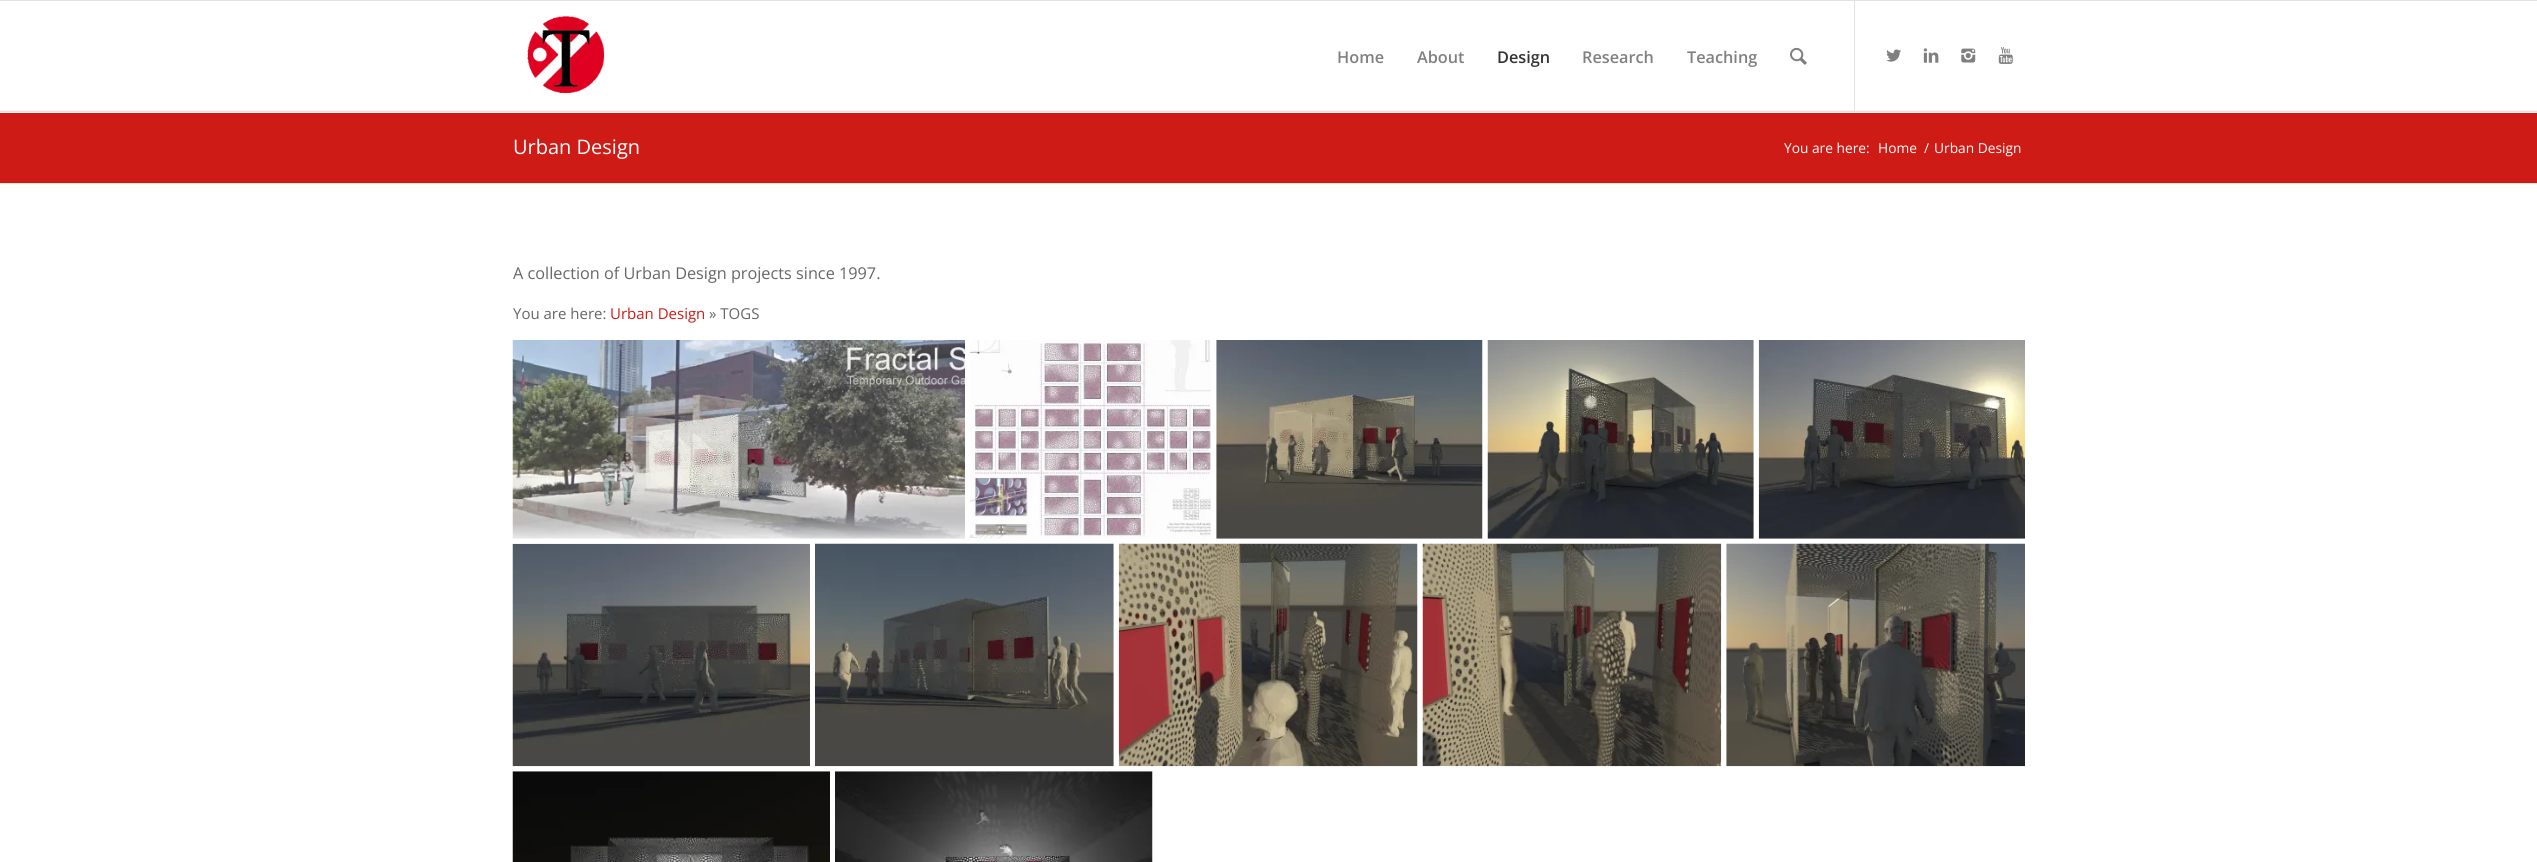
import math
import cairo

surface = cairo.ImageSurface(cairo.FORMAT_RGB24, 2537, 862)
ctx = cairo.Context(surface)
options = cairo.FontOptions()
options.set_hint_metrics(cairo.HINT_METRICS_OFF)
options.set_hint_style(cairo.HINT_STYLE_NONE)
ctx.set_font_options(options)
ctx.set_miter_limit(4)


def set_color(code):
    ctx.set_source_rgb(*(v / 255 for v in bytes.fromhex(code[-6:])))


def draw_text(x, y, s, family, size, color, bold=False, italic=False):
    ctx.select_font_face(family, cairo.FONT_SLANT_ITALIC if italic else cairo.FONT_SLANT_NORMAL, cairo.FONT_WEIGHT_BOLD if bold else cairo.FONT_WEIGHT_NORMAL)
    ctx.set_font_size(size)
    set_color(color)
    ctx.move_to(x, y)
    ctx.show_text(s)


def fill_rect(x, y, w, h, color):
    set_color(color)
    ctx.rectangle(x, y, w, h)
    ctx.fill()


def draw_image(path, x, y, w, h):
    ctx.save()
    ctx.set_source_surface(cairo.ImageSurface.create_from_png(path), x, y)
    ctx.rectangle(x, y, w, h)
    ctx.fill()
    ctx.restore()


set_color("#ffffff")
ctx.paint()
fill_rect(0, 0, 2537, 1, "#e1e1e1")
fill_rect(0, 111, 2537, 1, "#e1e1e1")
draw_image("assets/img1.png", 527, 16, 78, 78)
fill_rect(0, 110, 2537, 1, "#fbf4f4")
fill_rect(1854, 1, 1, 110, "#e1e1e1")
draw_text(1337, 63, "Home", "Open Sans SemiBold", 16.25, "#808080")
draw_text(1417, 63, "About", "Open Sans SemiBold", 16.25, "#808080")
draw_text(1497, 63, "Design", "Open Sans SemiBold", 16.25, "#333333")
draw_text(1582, 63, "Research", "Open Sans SemiBold", 16.25, "#808080")
draw_text(1687, 63, "Teaching", "Open Sans SemiBold", 16.25, "#808080")
draw_image("assets/img2.png", 1790, 47, 17, 18)
draw_image("assets/img3.png", 1886, 49, 15, 13)
draw_image("assets/img4.png", 1923, 48, 16, 15)
draw_image("assets/img5.png", 1961, 48, 15, 15)
draw_image("assets/img6.png", 1998, 47, 15, 17)
fill_rect(0, 113, 2537, 70, "#cf1b15")
fill_rect(0, 112, 2537, 1, "#fdf4f3")
draw_text(513, 154, "Urban Design", "Open Sans", 20, "#ffffff")
draw_text(1784, 153, "You are here:", "Open Sans", 13.75, "#ffffff")
draw_text(1878, 153, "Home", "Open Sans", 13.75, "#ffffff")
draw_text(1924, 153, "/", "Open Sans", 13.75, "#ffffff")
draw_text(1934, 153, "Urban Design", "Open Sans", 13.75, "#ffffff")
fill_rect(0, 183, 2537, 1, "#e1e1e1")
draw_text(513, 279, "A collection of Urban Design projects since 1997.", "Open Sans", 16.25, "#666666")
draw_text(513, 319, "You are here:", "Open Sans", 15, "#666666")
draw_text(610, 319, "Urban Design", "Open Sans", 15, "#cf1b15")
draw_text(709, 319, "» TOGS", "Open Sans", 15, "#666666")
draw_image("assets/img7.png", 512, 340, 453, 199)
draw_image("assets/img8.png", 970, 340, 241, 199)
draw_image("assets/img9.png", 1216, 340, 267, 199)
draw_image("assets/img10.png", 1487, 340, 267, 199)
draw_image("assets/img11.png", 1758, 340, 267, 199)
draw_image("assets/img12.png", 512, 543, 298, 224)
draw_image("assets/img13.png", 815, 543, 299, 224)
draw_image("assets/img14.png", 1118, 543, 300, 224)
draw_image("assets/img15.png", 1422, 543, 300, 224)
draw_image("assets/img16.png", 1726, 543, 299, 224)
draw_image("assets/img17.png", 512, 771, 318, 91)
draw_image("assets/img18.png", 835, 771, 318, 91)
surface.write_to_png("output.png")
